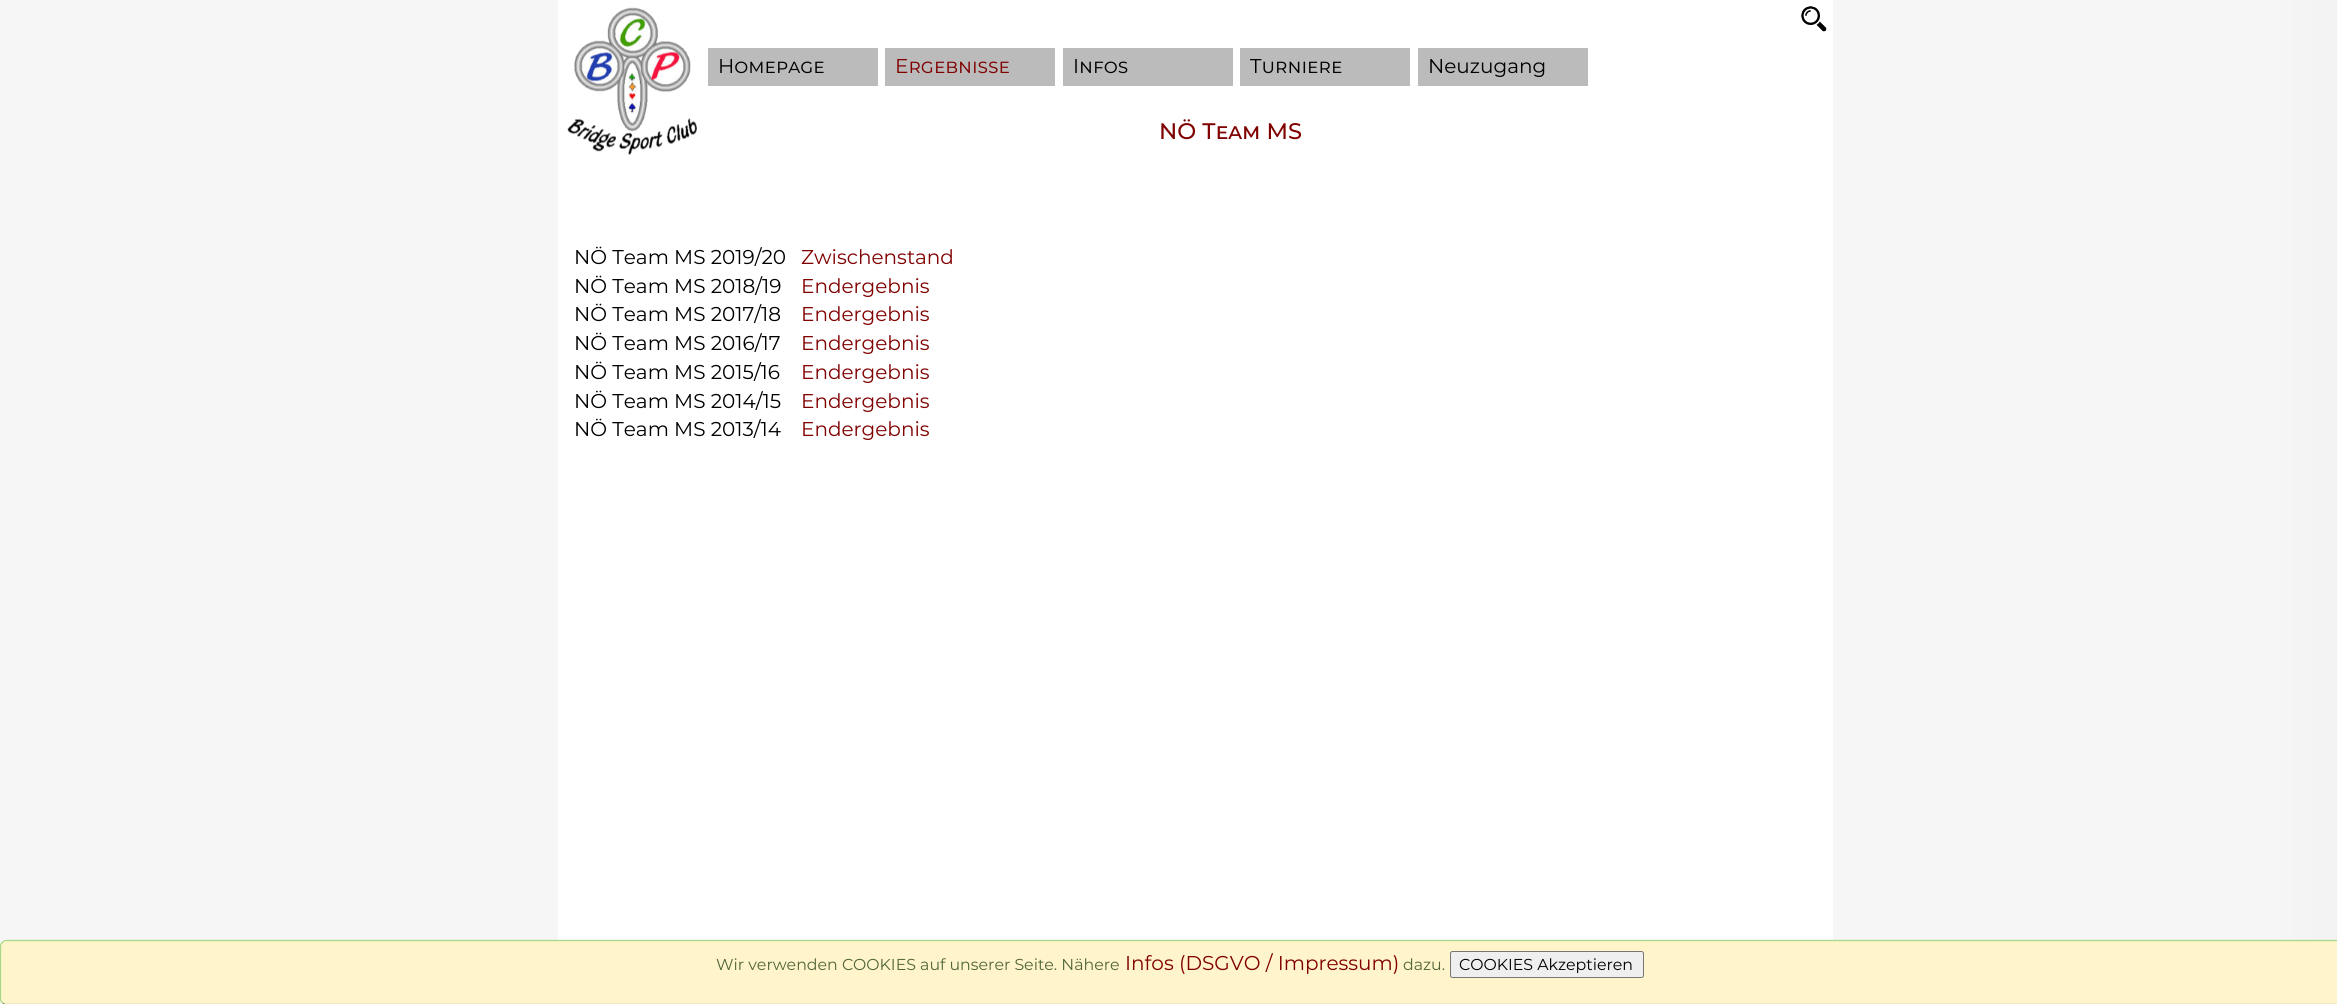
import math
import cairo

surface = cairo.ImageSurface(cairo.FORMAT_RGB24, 2337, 1004)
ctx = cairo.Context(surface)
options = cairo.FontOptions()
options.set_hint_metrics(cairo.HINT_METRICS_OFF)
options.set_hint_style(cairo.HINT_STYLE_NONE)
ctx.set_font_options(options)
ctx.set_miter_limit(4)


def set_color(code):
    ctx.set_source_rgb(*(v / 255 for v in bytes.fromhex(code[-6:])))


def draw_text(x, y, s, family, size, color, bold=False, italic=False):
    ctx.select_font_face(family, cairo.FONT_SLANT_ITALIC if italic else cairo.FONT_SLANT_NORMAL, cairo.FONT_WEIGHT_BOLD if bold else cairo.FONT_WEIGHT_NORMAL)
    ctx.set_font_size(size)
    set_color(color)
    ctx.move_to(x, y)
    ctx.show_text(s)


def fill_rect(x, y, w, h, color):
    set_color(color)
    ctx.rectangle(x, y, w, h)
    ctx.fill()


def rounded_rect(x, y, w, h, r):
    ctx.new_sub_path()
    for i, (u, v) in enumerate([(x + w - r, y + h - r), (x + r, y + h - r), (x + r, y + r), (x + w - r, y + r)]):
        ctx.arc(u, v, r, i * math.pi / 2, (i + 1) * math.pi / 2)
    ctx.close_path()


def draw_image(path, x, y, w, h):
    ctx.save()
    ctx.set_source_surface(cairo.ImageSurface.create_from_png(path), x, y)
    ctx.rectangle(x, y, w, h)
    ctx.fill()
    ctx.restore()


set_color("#eeeeee")
ctx.paint()
draw_image("assets/img1.png", 0, 0, 2337, 1004)
fill_rect(558, 0, 1275, 940, "#ffffff")
draw_image("assets/img2.png", 567, 7, 130, 148)
fill_rect(708, 48, 170, 38, "#bbbbbb")
draw_text(718, 73, "Homepage", "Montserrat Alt", 20, "#000000")
fill_rect(885, 48, 170, 38, "#bbbbbb")
draw_text(895, 73, "Ergebnisse", "Montserrat Alt", 20, "#800000")
fill_rect(1063, 48, 170, 38, "#bbbbbb")
draw_text(1073, 73, "Infos", "Montserrat Alt", 20, "#000000")
fill_rect(1240, 48, 170, 38, "#bbbbbb")
draw_text(1250, 73, "Turniere", "Montserrat Alt", 20, "#000000")
fill_rect(1418, 48, 170, 38, "#bbbbbb")
draw_text(1428, 73, "Neuzugang", "Montserrat", 20, "#000000")
draw_image("assets/img3.png", 1801, 6, 26, 26)
draw_text(1159, 139, "NÖ Team MS", "Montserrat Alt Medium", 22.5, "#800000")
draw_text(574, 264, "NÖ Team MS 2019/20", "Montserrat", 20, "#000000")
draw_text(801, 264, "Zwischenstand", "Montserrat", 20, "#800000")
draw_text(574, 293, "NÖ Team MS 2018/19", "Montserrat", 20, "#000000")
draw_text(801, 293, "Endergebnis", "Montserrat", 20, "#800000")
draw_text(574, 321, "NÖ Team MS 2017/18", "Montserrat", 20, "#000000")
draw_text(801, 321, "Endergebnis", "Montserrat", 20, "#800000")
draw_text(574, 350, "NÖ Team MS 2016/17", "Montserrat", 20, "#000000")
draw_text(801, 350, "Endergebnis", "Montserrat", 20, "#800000")
draw_text(574, 379, "NÖ Team MS 2015/16", "Montserrat", 20, "#000000")
draw_text(801, 379, "Endergebnis", "Montserrat", 20, "#800000")
draw_text(574, 408, "NÖ Team MS 2014/15", "Montserrat", 20, "#000000")
draw_text(801, 408, "Endergebnis", "Montserrat", 20, "#800000")
draw_text(574, 436, "NÖ Team MS 2013/14", "Montserrat", 20, "#000000")
draw_text(801, 436, "Endergebnis", "Montserrat", 20, "#800000")
set_color("#fff4ca")
rounded_rect(0, 940, 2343, 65, 6)
ctx.fill()
ctx.new_path()
ctx.move_to(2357.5, 942.5)
ctx.curve_to(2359, 943.5, 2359.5, 945, 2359.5, 946)
ctx.line_to(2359.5, 999)
ctx.curve_to(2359.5, 1000, 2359, 1001.5, 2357.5, 1002.5)
ctx.curve_to(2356.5, 1004, 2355, 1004.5, 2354, 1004.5)
ctx.line_to(6.5, 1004.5)
ctx.curve_to(5, 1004.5, 3.5, 1004, 2.5, 1002.5)
set_color("#7ba466")
ctx.set_line_width(1.2)
ctx.stroke()
ctx.new_path()
ctx.move_to(2.5, 1002.5)
ctx.curve_to(1, 1001.5, 0.5, 1000, 0.5, 999)
ctx.line_to(0.5, 946)
ctx.curve_to(0.5, 945, 1, 943.5, 2.5, 942.5)
ctx.curve_to(3.5, 941, 5, 940.5, 6, 940.5)
ctx.line_to(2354, 940.5)
ctx.curve_to(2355, 940.5, 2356.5, 941, 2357.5, 942.5)
set_color("#a2d886")
ctx.stroke()
draw_text(716, 970, "Wir verwenden COOKIES auf unserer Seite. Nähere", "Montserrat", 15.8, "#516538")
draw_text(1125, 970, "Infos (DSGVO / Impressum)", "Montserrat", 20, "#800000")
draw_text(1403, 970, "dazu.", "Montserrat", 15.8, "#516538")
set_color("#efefef")
rounded_rect(1450.5, 951.5, 193, 26, 2)
ctx.fill_preserve()
set_color("#767676")
ctx.set_line_width(1)
ctx.stroke()
draw_text(1459, 970, "COOKIES Akzeptieren", "Montserrat", 15.8, "#000000")
surface.write_to_png("output.png")
